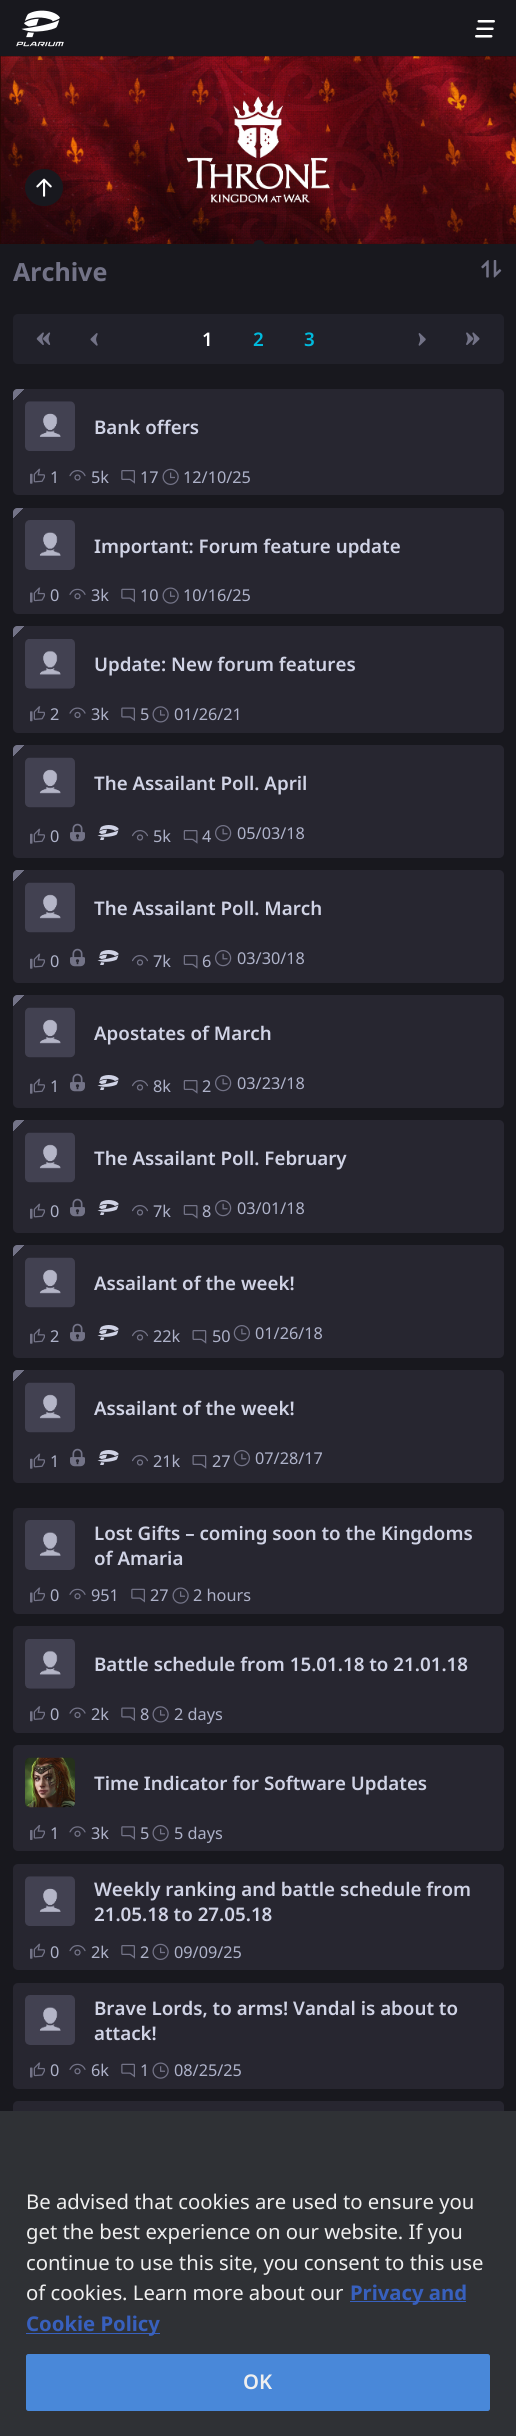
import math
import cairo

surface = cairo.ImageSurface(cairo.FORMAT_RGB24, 516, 2436)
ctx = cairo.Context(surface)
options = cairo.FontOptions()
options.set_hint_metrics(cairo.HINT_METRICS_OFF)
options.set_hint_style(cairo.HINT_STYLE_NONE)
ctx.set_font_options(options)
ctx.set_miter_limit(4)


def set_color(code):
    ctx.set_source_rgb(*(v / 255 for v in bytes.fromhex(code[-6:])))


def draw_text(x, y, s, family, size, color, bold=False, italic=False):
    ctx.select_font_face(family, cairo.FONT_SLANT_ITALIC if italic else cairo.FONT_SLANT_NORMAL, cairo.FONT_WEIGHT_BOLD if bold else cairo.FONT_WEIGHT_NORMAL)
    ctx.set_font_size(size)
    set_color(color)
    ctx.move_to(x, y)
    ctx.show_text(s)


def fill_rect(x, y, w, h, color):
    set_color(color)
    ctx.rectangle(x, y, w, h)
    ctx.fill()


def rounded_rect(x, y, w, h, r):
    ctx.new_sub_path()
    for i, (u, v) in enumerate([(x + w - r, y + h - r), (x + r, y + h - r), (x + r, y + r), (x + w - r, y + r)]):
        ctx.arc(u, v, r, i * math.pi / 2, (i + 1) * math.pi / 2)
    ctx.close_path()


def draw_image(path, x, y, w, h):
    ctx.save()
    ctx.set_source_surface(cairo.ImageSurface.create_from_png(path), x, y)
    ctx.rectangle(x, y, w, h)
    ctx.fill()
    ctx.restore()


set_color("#18181e")
ctx.paint()
draw_image("assets/img1.png", 16, 10, 48, 37)
draw_image("assets/img2.png", 475, 20, 20, 18)
fill_rect(0, 56, 516, 188, "#230801")
draw_image("assets/img3.png", 0, 56, 516, 188)
draw_image("assets/img4.png", 25, 169, 38, 37)
set_color("#18181e")
rounded_rect(253, 240, 12, 13, 6)
ctx.fill()
draw_text(13, 281, "Archive", "Noto Sans", 25, "#737387", bold=True)
draw_image("assets/img5.png", 481, 260, 21, 18)
set_color("#21212a")
rounded_rect(13, 314, 491, 50, 5)
ctx.fill()
draw_image("assets/img6.png", 36, 332, 15, 13)
draw_image("assets/img7.png", 90, 333, 8, 13)
draw_text(202, 346, "1", "Noto Sans SemiBold", 18.75, "#ffffff")
draw_text(253, 346, "2", "Noto Sans SemiBold", 18.75, "#00badd")
draw_text(304, 346, "3", "Noto Sans SemiBold", 18.75, "#00badd")
draw_image("assets/img8.png", 418, 333, 8, 13)
draw_image("assets/img9.png", 466, 332, 14, 13)
set_color("#272630")
rounded_rect(13, 389, 491, 106, 5)
ctx.fill()
gradient = cairo.LinearGradient(24, 401, 12, 389)
gradient.add_color_stop_rgba(0.5, 0.451, 0.451, 0.529, 0)
gradient.add_color_stop_rgba(0.5, 0.451, 0.451, 0.529, 1)
ctx.set_source(gradient)
ctx.new_path()
ctx.move_to(17, 389)
ctx.line_to(24, 389)
ctx.line_to(24, 401)
ctx.line_to(13, 401)
ctx.line_to(13, 393)
ctx.curve_to(13, 391, 15, 389, 17, 389)
ctx.close_path()
ctx.fill()
draw_image("assets/img10.png", 25, 401, 50, 50)
draw_text(94, 434, "Bank offers", "Noto Sans SemiBold", 18.75, "#d0d3e5")
draw_image("assets/img11.png", 30, 468, 15, 16)
draw_text(50, 483, "1", "Noto Sans", 16.25, "#aeb2c9")
draw_image("assets/img12.png", 69, 470, 17, 11)
draw_text(91, 483, "5k", "Noto Sans", 16.25, "#aeb2c9")
draw_image("assets/img13.png", 121, 470, 14, 14)
draw_text(140, 483, "17", "Noto Sans", 16.25, "#aeb2c9")
draw_image("assets/img14.png", 162, 468, 17, 17)
draw_text(183, 483, "12/10/25", "Noto Sans", 16.25, "#aeb2c9")
set_color("#272630")
rounded_rect(13, 508, 491, 106, 5)
ctx.fill()
gradient = cairo.LinearGradient(24, 519, 12, 508)
gradient.add_color_stop_rgba(0.5, 0.451, 0.451, 0.529, 0)
gradient.add_color_stop_rgba(0.5, 0.451, 0.451, 0.529, 1)
ctx.set_source(gradient)
ctx.new_path()
ctx.move_to(17, 508)
ctx.line_to(24, 508)
ctx.line_to(24, 520)
ctx.line_to(13, 520)
ctx.line_to(13, 512)
ctx.curve_to(13, 510, 15, 508, 17, 508)
ctx.close_path()
ctx.fill()
draw_image("assets/img15.png", 25, 520, 50, 50)
draw_text(94, 553, "Important: Forum feature update", "Noto Sans SemiBold", 18.75, "#d0d3e5")
draw_image("assets/img16.png", 30, 587, 15, 16)
draw_text(50, 601, "0", "Noto Sans", 16.25, "#aeb2c9")
draw_image("assets/img17.png", 69, 588, 17, 12)
draw_text(91, 601, "3k", "Noto Sans", 16.25, "#aeb2c9")
draw_image("assets/img18.png", 121, 588, 14, 15)
draw_text(140, 601, "10", "Noto Sans", 16.25, "#aeb2c9")
draw_image("assets/img19.png", 162, 587, 17, 17)
draw_text(183, 601, "10/16/25", "Noto Sans", 16.25, "#aeb2c9")
set_color("#272630")
rounded_rect(13, 626, 491, 107, 5)
ctx.fill()
gradient = cairo.LinearGradient(24, 638, 12, 627)
gradient.add_color_stop_rgba(0.5, 0.451, 0.451, 0.529, 0)
gradient.add_color_stop_rgba(0.5, 0.451, 0.451, 0.529, 1)
ctx.set_source(gradient)
ctx.new_path()
ctx.move_to(17, 626)
ctx.line_to(24, 626)
ctx.line_to(24, 639)
ctx.line_to(13, 639)
ctx.line_to(13, 630)
ctx.curve_to(13, 628, 15, 626, 17, 626)
ctx.close_path()
ctx.fill()
draw_image("assets/img20.png", 25, 639, 50, 50)
draw_text(94, 671, "Update: New forum features", "Noto Sans SemiBold", 18.75, "#d0d3e5")
draw_image("assets/img21.png", 30, 706, 15, 16)
draw_text(50, 720, "2", "Noto Sans", 16.25, "#aeb2c9")
draw_image("assets/img22.png", 69, 707, 17, 12)
draw_text(91, 720, "3k", "Noto Sans", 16.25, "#aeb2c9")
draw_image("assets/img23.png", 121, 707, 14, 14)
draw_text(140, 720, "5", "Noto Sans", 16.25, "#aeb2c9")
draw_image("assets/img24.png", 152, 706, 17, 17)
draw_text(174, 720, "01/26/21", "Noto Sans", 16.25, "#aeb2c9")
set_color("#272630")
rounded_rect(13, 745, 491, 113, 5)
ctx.fill()
gradient = cairo.LinearGradient(24, 757, 12, 746)
gradient.add_color_stop_rgba(0.5, 0.451, 0.451, 0.529, 0)
gradient.add_color_stop_rgba(0.5, 0.451, 0.451, 0.529, 1)
ctx.set_source(gradient)
ctx.new_path()
ctx.move_to(17, 745)
ctx.line_to(24, 745)
ctx.line_to(24, 758)
ctx.line_to(13, 758)
ctx.line_to(13, 749)
ctx.curve_to(13, 747, 15, 745, 17, 745)
ctx.close_path()
ctx.fill()
draw_image("assets/img25.png", 25, 757, 50, 51)
draw_text(94, 790, "The Assailant Poll. April", "Noto Sans SemiBold", 18.75, "#d0d3e5")
draw_image("assets/img11.png", 30, 828, 15, 16)
draw_text(50, 842, "0", "Noto Sans", 16.25, "#aeb2c9")
draw_image("assets/img26.png", 70, 823, 15, 19)
draw_image("assets/img27.png", 97, 825, 22, 15)
draw_image("assets/img28.png", 132, 830, 16, 11)
draw_text(153, 842, "5k", "Noto Sans", 16.25, "#aeb2c9")
draw_image("assets/img29.png", 183, 830, 15, 14)
draw_text(202, 842, "4", "Noto Sans", 16.25, "#aeb2c9")
draw_image("assets/img30.png", 215, 825, 17, 17)
draw_text(237, 839, "05/03/18", "Noto Sans", 16.25, "#aeb2c9")
set_color("#272630")
rounded_rect(13, 870, 491, 113, 5)
ctx.fill()
gradient = cairo.LinearGradient(24, 882, 12, 871)
gradient.add_color_stop_rgba(0.5, 0.451, 0.451, 0.529, 0)
gradient.add_color_stop_rgba(0.5, 0.451, 0.451, 0.529, 1)
ctx.set_source(gradient)
ctx.new_path()
ctx.move_to(17, 870)
ctx.line_to(24, 870)
ctx.line_to(24, 883)
ctx.line_to(13, 883)
ctx.line_to(13, 874)
ctx.curve_to(13, 872, 15, 870, 17, 870)
ctx.close_path()
ctx.fill()
draw_image("assets/img25.png", 25, 882, 50, 51)
draw_text(94, 915, "The Assailant Poll. March", "Noto Sans SemiBold", 18.75, "#d0d3e5")
draw_image("assets/img11.png", 30, 953, 15, 16)
draw_text(50, 967, "0", "Noto Sans", 16.25, "#aeb2c9")
draw_image("assets/img26.png", 70, 948, 15, 19)
draw_image("assets/img27.png", 97, 950, 22, 15)
draw_image("assets/img28.png", 132, 955, 16, 11)
draw_text(153, 967, "7k", "Noto Sans", 16.25, "#aeb2c9")
draw_image("assets/img29.png", 183, 955, 15, 14)
draw_text(202, 967, "6", "Noto Sans", 16.25, "#aeb2c9")
draw_image("assets/img30.png", 215, 950, 17, 17)
draw_text(237, 964, "03/30/18", "Noto Sans", 16.25, "#aeb2c9")
set_color("#272630")
rounded_rect(13, 995, 491, 113, 5)
ctx.fill()
gradient = cairo.LinearGradient(24, 1007, 12, 996)
gradient.add_color_stop_rgba(0.5, 0.451, 0.451, 0.529, 0)
gradient.add_color_stop_rgba(0.5, 0.451, 0.451, 0.529, 1)
ctx.set_source(gradient)
ctx.new_path()
ctx.move_to(17, 995)
ctx.line_to(24, 995)
ctx.line_to(24, 1008)
ctx.line_to(13, 1008)
ctx.line_to(13, 999)
ctx.curve_to(13, 997, 15, 995, 17, 995)
ctx.close_path()
ctx.fill()
draw_image("assets/img25.png", 25, 1007, 50, 51)
draw_text(94, 1040, "Apostates of March", "Noto Sans SemiBold", 18.75, "#d0d3e5")
draw_image("assets/img11.png", 30, 1078, 15, 16)
draw_text(50, 1092, "1", "Noto Sans", 16.25, "#aeb2c9")
draw_image("assets/img26.png", 70, 1073, 15, 19)
draw_image("assets/img27.png", 97, 1075, 22, 15)
draw_image("assets/img28.png", 132, 1080, 16, 11)
draw_text(153, 1092, "8k", "Noto Sans", 16.25, "#aeb2c9")
draw_image("assets/img29.png", 183, 1080, 15, 14)
draw_text(202, 1092, "2", "Noto Sans", 16.25, "#aeb2c9")
draw_image("assets/img30.png", 215, 1075, 17, 17)
draw_text(237, 1089, "03/23/18", "Noto Sans", 16.25, "#aeb2c9")
set_color("#272630")
rounded_rect(13, 1120, 491, 113, 5)
ctx.fill()
gradient = cairo.LinearGradient(24, 1132, 12, 1121)
gradient.add_color_stop_rgba(0.5, 0.451, 0.451, 0.529, 0)
gradient.add_color_stop_rgba(0.5, 0.451, 0.451, 0.529, 1)
ctx.set_source(gradient)
ctx.new_path()
ctx.move_to(17, 1120)
ctx.line_to(24, 1120)
ctx.line_to(24, 1133)
ctx.line_to(13, 1133)
ctx.line_to(13, 1124)
ctx.curve_to(13, 1122, 15, 1120, 17, 1120)
ctx.close_path()
ctx.fill()
draw_image("assets/img25.png", 25, 1132, 50, 51)
draw_text(94, 1165, "The Assailant Poll. February", "Noto Sans SemiBold", 18.75, "#d0d3e5")
draw_image("assets/img11.png", 30, 1203, 15, 16)
draw_text(50, 1217, "0", "Noto Sans", 16.25, "#aeb2c9")
draw_image("assets/img26.png", 70, 1198, 15, 19)
draw_image("assets/img27.png", 97, 1200, 22, 15)
draw_image("assets/img28.png", 132, 1205, 16, 11)
draw_text(153, 1217, "7k", "Noto Sans", 16.25, "#aeb2c9")
draw_image("assets/img29.png", 183, 1205, 15, 14)
draw_text(202, 1217, "8", "Noto Sans", 16.25, "#aeb2c9")
draw_image("assets/img30.png", 215, 1200, 17, 17)
draw_text(237, 1214, "03/01/18", "Noto Sans", 16.25, "#aeb2c9")
set_color("#272630")
rounded_rect(13, 1245, 491, 113, 5)
ctx.fill()
gradient = cairo.LinearGradient(24, 1257, 12, 1246)
gradient.add_color_stop_rgba(0.5, 0.451, 0.451, 0.529, 0)
gradient.add_color_stop_rgba(0.5, 0.451, 0.451, 0.529, 1)
ctx.set_source(gradient)
ctx.new_path()
ctx.move_to(17, 1245)
ctx.line_to(24, 1245)
ctx.line_to(24, 1258)
ctx.line_to(13, 1258)
ctx.line_to(13, 1249)
ctx.curve_to(13, 1247, 15, 1245, 17, 1245)
ctx.close_path()
ctx.fill()
draw_image("assets/img25.png", 25, 1257, 50, 51)
draw_text(94, 1290, "Assailant of the week!", "Noto Sans SemiBold", 18.75, "#d0d3e5")
draw_image("assets/img11.png", 30, 1328, 15, 16)
draw_text(50, 1342, "2", "Noto Sans", 16.25, "#aeb2c9")
draw_image("assets/img26.png", 70, 1323, 15, 19)
draw_image("assets/img27.png", 97, 1325, 22, 15)
draw_image("assets/img28.png", 132, 1330, 16, 11)
draw_text(153, 1342, "22k", "Noto Sans", 16.25, "#aeb2c9")
draw_image("assets/img31.png", 192, 1330, 15, 14)
draw_text(212, 1342, "50", "Noto Sans", 16.25, "#aeb2c9")
draw_image("assets/img32.png", 233, 1325, 17, 17)
draw_text(255, 1339, "01/26/18", "Noto Sans", 16.25, "#aeb2c9")
set_color("#272630")
rounded_rect(13, 1370, 491, 113, 5)
ctx.fill()
gradient = cairo.LinearGradient(24, 1382, 12, 1371)
gradient.add_color_stop_rgba(0.5, 0.451, 0.451, 0.529, 0)
gradient.add_color_stop_rgba(0.5, 0.451, 0.451, 0.529, 1)
ctx.set_source(gradient)
ctx.new_path()
ctx.move_to(17, 1370)
ctx.line_to(24, 1370)
ctx.line_to(24, 1383)
ctx.line_to(13, 1383)
ctx.line_to(13, 1374)
ctx.curve_to(13, 1372, 15, 1370, 17, 1370)
ctx.close_path()
ctx.fill()
draw_image("assets/img25.png", 25, 1382, 50, 51)
draw_text(94, 1415, "Assailant of the week!", "Noto Sans SemiBold", 18.75, "#d0d3e5")
draw_image("assets/img11.png", 30, 1453, 15, 16)
draw_text(50, 1467, "1", "Noto Sans", 16.25, "#aeb2c9")
draw_image("assets/img26.png", 70, 1448, 15, 19)
draw_image("assets/img27.png", 97, 1450, 22, 15)
draw_image("assets/img28.png", 132, 1455, 16, 11)
draw_text(153, 1467, "21k", "Noto Sans", 16.25, "#aeb2c9")
draw_image("assets/img31.png", 192, 1455, 15, 14)
draw_text(212, 1467, "27", "Noto Sans", 16.25, "#aeb2c9")
draw_image("assets/img32.png", 233, 1450, 17, 17)
draw_text(255, 1464, "07/28/17", "Noto Sans", 16.25, "#aeb2c9")
set_color("#272630")
rounded_rect(13, 1508, 491, 106, 5)
ctx.fill()
draw_image("assets/img33.png", 25, 1520, 50, 50)
draw_text(94, 1540, "Lost Gifts – coming soon to the Kingdoms", "Noto Sans SemiBold", 18.75, "#d0d3e5")
draw_text(94, 1565, "of Amaria", "Noto Sans SemiBold", 18.75, "#d0d3e5")
draw_image("assets/img16.png", 30, 1587, 15, 16)
draw_text(50, 1601, "0", "Noto Sans", 16.25, "#aeb2c9")
draw_image("assets/img17.png", 69, 1588, 17, 12)
draw_text(91, 1601, "951", "Noto Sans", 16.25, "#aeb2c9")
draw_image("assets/img18.png", 131, 1588, 14, 15)
draw_text(150, 1601, "27", "Noto Sans", 16.25, "#aeb2c9")
draw_image("assets/img19.png", 172, 1587, 17, 17)
draw_text(193, 1601, "2 hours", "Noto Sans", 16.25, "#aeb2c9")
set_color("#272630")
rounded_rect(13, 1626, 491, 107, 5)
ctx.fill()
draw_image("assets/img20.png", 25, 1639, 50, 50)
draw_text(94, 1671, "Battle schedule from 15.01.18 to 21.01.18", "Noto Sans SemiBold", 18.75, "#d0d3e5")
draw_image("assets/img21.png", 30, 1706, 15, 16)
draw_text(50, 1720, "0", "Noto Sans", 16.25, "#aeb2c9")
draw_image("assets/img22.png", 69, 1707, 17, 12)
draw_text(91, 1720, "2k", "Noto Sans", 16.25, "#aeb2c9")
draw_image("assets/img23.png", 121, 1707, 14, 14)
draw_text(140, 1720, "8", "Noto Sans", 16.25, "#aeb2c9")
draw_image("assets/img24.png", 152, 1706, 17, 17)
draw_text(174, 1720, "2 days", "Noto Sans", 16.25, "#aeb2c9")
set_color("#272630")
rounded_rect(13, 1745, 491, 106, 5)
ctx.fill()
draw_image("assets/img34.png", 25, 1757, 50, 51)
draw_text(94, 1790, "Time Indicator for Software Updates", "Noto Sans SemiBold", 18.75, "#d0d3e5")
draw_image("assets/img35.png", 30, 1825, 15, 15)
draw_text(50, 1839, "1", "Noto Sans", 16.25, "#aeb2c9")
draw_image("assets/img36.png", 69, 1826, 17, 11)
draw_text(91, 1839, "3k", "Noto Sans", 16.25, "#aeb2c9")
draw_image("assets/img37.png", 121, 1826, 14, 14)
draw_text(140, 1839, "5", "Noto Sans", 16.25, "#aeb2c9")
draw_image("assets/img38.png", 152, 1825, 17, 17)
draw_text(174, 1839, "5 days", "Noto Sans", 16.25, "#aeb2c9")
set_color("#272630")
rounded_rect(13, 1864, 491, 106, 5)
ctx.fill()
draw_image("assets/img10.png", 25, 1876, 50, 50)
draw_text(94, 1896, "Weekly ranking and battle schedule from", "Noto Sans SemiBold", 18.75, "#d0d3e5")
draw_text(94, 1921, "21.05.18 to 27.05.18", "Noto Sans SemiBold", 18.75, "#d0d3e5")
draw_image("assets/img11.png", 30, 1943, 15, 16)
draw_text(50, 1958, "0", "Noto Sans", 16.25, "#aeb2c9")
draw_image("assets/img12.png", 69, 1945, 17, 11)
draw_text(91, 1958, "2k", "Noto Sans", 16.25, "#aeb2c9")
draw_image("assets/img13.png", 121, 1945, 14, 14)
draw_text(140, 1958, "2", "Noto Sans", 16.25, "#aeb2c9")
draw_image("assets/img14.png", 152, 1943, 17, 17)
draw_text(174, 1958, "09/09/25", "Noto Sans", 16.25, "#aeb2c9")
set_color("#272630")
rounded_rect(13, 1983, 491, 106, 5)
ctx.fill()
draw_image("assets/img33.png", 25, 1995, 50, 50)
draw_text(94, 2015, "Brave Lords, to arms! Vandal is about to", "Noto Sans SemiBold", 18.75, "#d0d3e5")
draw_text(94, 2040, "attack!", "Noto Sans SemiBold", 18.75, "#d0d3e5")
draw_image("assets/img16.png", 30, 2062, 15, 16)
draw_text(50, 2076, "0", "Noto Sans", 16.25, "#aeb2c9")
draw_image("assets/img17.png", 69, 2063, 17, 12)
draw_text(91, 2076, "6k", "Noto Sans", 16.25, "#aeb2c9")
draw_image("assets/img18.png", 121, 2063, 14, 15)
draw_text(140, 2076, "1", "Noto Sans", 16.25, "#aeb2c9")
draw_image("assets/img19.png", 152, 2062, 17, 17)
draw_text(174, 2076, "08/25/25", "Noto Sans", 16.25, "#aeb2c9")
set_color("#272630")
rounded_rect(13, 2101, 491, 107, 5)
ctx.fill()
fill_rect(0, 2111, 516, 325, "#2f3135")
draw_text(26, 2209, "Be advised that cookies are used to ensure you", "Noto Sans", 20.3, "#efefef")
draw_text(26, 2239, "get the best experience on our website. If you", "Noto Sans", 20.3, "#efefef")
draw_text(26, 2270, "continue to use this site, you consent to this use", "Noto Sans", 20.3, "#efefef")
draw_text(26, 2300, "of cookies. Learn more about our", "Noto Sans", 20.3, "#efefef")
fill_rect(350, 2301, 116, 1, "#3860be")
draw_text(350, 2300, "Privacy and", "Noto Sans", 20.3, "#3860be", bold=True)
fill_rect(26, 2333, 134, 1, "#3860be")
draw_text(26, 2331, "Cookie Policy", "Noto Sans", 20.3, "#3860be", bold=True)
set_color("#4988d9")
rounded_rect(26.5, 2354.5, 463, 56, 2)
ctx.fill_preserve()
ctx.set_line_width(1)
ctx.stroke()
draw_text(243, 2389, "OK", "Noto Sans SemiBold", 20.3, "#efefef")
surface.write_to_png("output.png")
